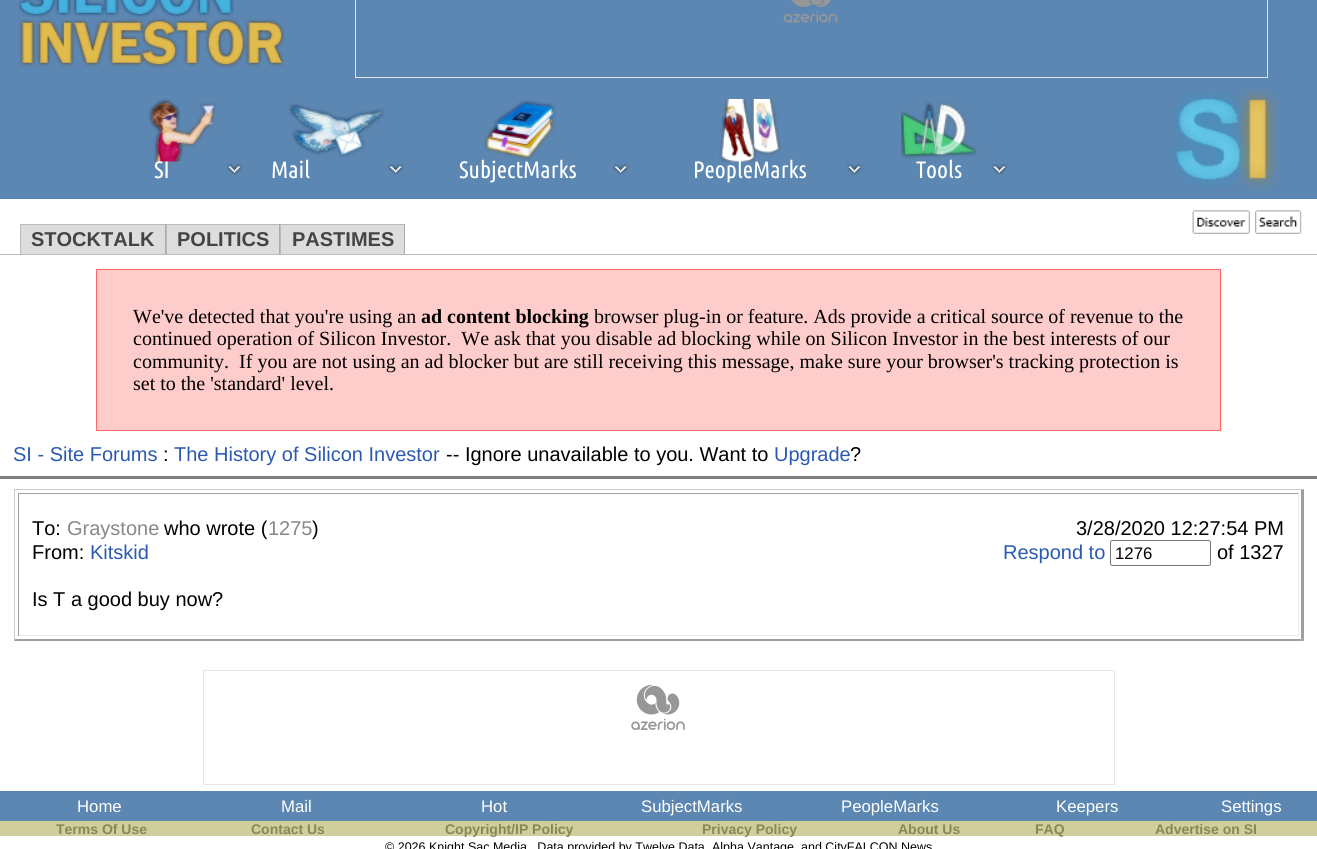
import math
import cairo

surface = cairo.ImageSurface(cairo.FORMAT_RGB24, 1317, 849)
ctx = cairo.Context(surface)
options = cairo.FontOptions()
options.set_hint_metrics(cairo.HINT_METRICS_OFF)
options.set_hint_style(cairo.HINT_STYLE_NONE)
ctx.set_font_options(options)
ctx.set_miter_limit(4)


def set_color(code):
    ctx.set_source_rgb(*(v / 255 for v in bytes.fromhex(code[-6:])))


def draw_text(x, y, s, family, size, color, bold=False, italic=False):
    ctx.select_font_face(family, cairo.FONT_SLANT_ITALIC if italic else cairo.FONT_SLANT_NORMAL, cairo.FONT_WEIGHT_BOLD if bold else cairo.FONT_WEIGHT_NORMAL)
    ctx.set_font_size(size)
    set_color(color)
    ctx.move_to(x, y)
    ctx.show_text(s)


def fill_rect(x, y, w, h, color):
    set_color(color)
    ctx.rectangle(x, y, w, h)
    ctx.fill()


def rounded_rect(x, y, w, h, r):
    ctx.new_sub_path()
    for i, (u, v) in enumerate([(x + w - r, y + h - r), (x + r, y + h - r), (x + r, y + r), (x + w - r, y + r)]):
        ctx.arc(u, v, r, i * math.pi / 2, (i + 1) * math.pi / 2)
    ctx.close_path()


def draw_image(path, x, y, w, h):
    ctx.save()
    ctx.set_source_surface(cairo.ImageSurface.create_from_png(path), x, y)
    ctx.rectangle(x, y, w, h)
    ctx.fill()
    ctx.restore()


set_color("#ffffff")
ctx.paint()
fill_rect(0, 0, 1317, 199, "#5c87b2")
draw_image("assets/img1.png", 18, 0, 267, 68)
ctx.rectangle(355.5, -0.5, 912, 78)
set_color("#e6e6e6")
ctx.set_line_width(1)
ctx.stroke()
draw_image("assets/img2.png", 783, 0, 55, 23)
draw_image("assets/img3.png", 148, 99, 69, 63)
draw_image("assets/img4.png", 227, 164, 15, 11)
draw_text(154, 178, "SI", "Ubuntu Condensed", 23.75, "#ffffff")
draw_image("assets/img5.png", 289, 103, 95, 55)
draw_image("assets/img6.png", 388, 164, 16, 11)
draw_text(271, 178, "Mail", "Ubuntu Condensed", 23.75, "#ffffff")
draw_image("assets/img7.png", 484, 100, 72, 60)
draw_image("assets/img8.png", 613, 164, 16, 11)
draw_text(459, 178, "SubjectMarks", "Ubuntu Condensed", 23.75, "#ffffff")
draw_image("assets/img9.png", 719, 99, 62, 63)
draw_image("assets/img4.png", 847, 164, 15, 11)
draw_text(693, 178, "PeopleMarks", "Ubuntu Condensed", 23.75, "#ffffff")
draw_image("assets/img10.png", 901, 101, 76, 58)
draw_image("assets/img11.png", 992, 164, 15, 11)
draw_text(916, 178, "Tools", "Ubuntu Condensed", 23.75, "#ffffff")
draw_image("assets/img12.png", 1170, 88, 109, 103)
draw_image("assets/img13.png", 1192, 210, 58, 24)
draw_image("assets/img14.png", 1255, 210, 47, 24)
fill_rect(21, 225, 144, 29, "#dddddd")
fill_rect(20, 224, 385, 1, "#bbbbbb")
fill_rect(165, 224, 1, 31, "#aaaaaa")
fill_rect(20, 224, 1, 31, "#bbbbbb")
draw_text(31, 246, "STOCKTALK", "Liberation Sans", 20, "#444444", bold=True)
fill_rect(167, 225, 112, 29, "#dddddd")
fill_rect(279, 224, 1, 31, "#aaaaaa")
fill_rect(166, 224, 1, 31, "#bbbbbb")
draw_text(177, 246, "POLITICS", "Liberation Sans", 20, "#444444", bold=True)
fill_rect(281, 225, 123, 29, "#dddddd")
fill_rect(404, 224, 1, 31, "#aaaaaa")
fill_rect(280, 224, 1, 31, "#bbbbbb")
draw_text(292, 246, "PASTIMES", "Liberation Sans", 20, "#444444", bold=True)
fill_rect(0, 254, 1317, 1, "#bbbbbb")
set_color("#ffcccc")
ctx.rectangle(96.5, 269.5, 1124, 161)
ctx.fill_preserve()
set_color("#ff6666")
ctx.stroke()
draw_text(133, 323, "We've detected that you're using an", "Liberation Serif", 20, "#000000")
draw_text(421, 323, "ad content blocking", "Liberation Serif", 20, "#000000", bold=True)
draw_text(594, 323, "browser plug-in or feature. Ads provide a critical source of revenue to the", "Liberation Serif", 20, "#000000")
draw_text(133, 345, "continued operation of Silicon Investor.  We ask that you disable ad blocking while on Silicon Investor in the best interests of our", "Liberation Serif", 20, "#000000")
draw_text(133, 368, "community.  If you are not using an ad blocker but are still receiving this message, make sure your browser's tracking protection is", "Liberation Serif", 20, "#000000")
draw_text(133, 390, "set to the 'standard' level.", "Liberation Serif", 20, "#000000")
draw_text(13, 461, "SI - Site Forums", "Liberation Sans", 20, "#2b59b2")
draw_text(163, 461, ":", "Liberation Sans", 20, "#000000")
draw_text(174, 461, "The History of Silicon Investor", "Liberation Sans", 20, "#2b59b2")
draw_text(446, 461, "-- Ignore unavailable to you. Want to", "Liberation Sans", 20, "#000000")
draw_text(774, 461, "Upgrade", "Liberation Sans", 20, "#2b59b2")
draw_text(850, 461, "?", "Liberation Sans", 20, "#000000")
fill_rect(0, 476, 1317, 3, "#808080")
set_color("#cbcbcb")
ctx.new_path()
ctx.move_to(14, 489)
ctx.line_to(1304, 489)
ctx.line_to(1301, 490)
ctx.line_to(15, 490)
ctx.close_path()
ctx.fill()
set_color("#9f9f9f")
ctx.new_path()
ctx.move_to(1304, 489)
ctx.line_to(1304, 641)
ctx.line_to(1301, 639)
ctx.line_to(1301, 490)
ctx.close_path()
ctx.fill()
ctx.new_path()
ctx.move_to(1304, 641)
ctx.line_to(14, 641)
ctx.line_to(15, 639)
ctx.line_to(1301, 639)
ctx.close_path()
ctx.fill()
set_color("#cbcbcb")
ctx.new_path()
ctx.move_to(14, 641)
ctx.line_to(14, 489)
ctx.line_to(15, 490)
ctx.line_to(15, 639)
ctx.close_path()
ctx.fill()
fill_rect(18, 493, 1281, 1, "#9f9f9f")
fill_rect(1298, 493, 1, 143, "#ebebeb")
fill_rect(18, 635, 1281, 1, "#ebebeb")
fill_rect(18, 493, 1, 143, "#9f9f9f")
draw_text(32, 535, "To:", "Liberation Sans", 20, "#000000")
draw_text(67, 535, "Graystone", "Liberation Sans", 20, "#888888")
draw_text(164, 535, "who wrote (", "Liberation Sans", 20, "#000000")
draw_text(268, 535, "1275", "Liberation Sans", 20, "#888888")
draw_text(312, 535, ")", "Liberation Sans", 20, "#000000")
draw_text(1076, 535, "3/28/2020 12:27:54 PM", "Liberation Sans", 20, "#000000")
draw_text(32, 559, "From:", "Liberation Sans", 20, "#000000")
draw_text(90, 559, "Kitskid", "Liberation Sans", 20, "#2b59b2")
draw_text(1003, 559, "Respond to", "Liberation Sans", 20, "#2b59b2")
rounded_rect(1110.5, 540.5, 100, 25, 2)
set_color("#767676")
ctx.stroke()
draw_text(1115, 559, "1276", "Liberation Sans", 16.75, "#000000")
draw_text(1217, 559, "of 1327", "Liberation Sans", 20, "#000000")
draw_text(32, 606, "Is T a good buy now?", "Liberation Sans", 20, "#000000")
ctx.rectangle(203.5, 670.5, 911, 114)
set_color("#e6e6e6")
ctx.stroke()
draw_image("assets/img15.png", 631, 685, 54, 45)
fill_rect(0, 791, 1317, 30, "#5c87b2")
draw_text(77, 812, "Home", "Liberation Sans", 16.75, "#ffffff")
draw_text(281, 812, "Mail", "Liberation Sans", 16.75, "#ffffff")
draw_text(481, 812, "Hot", "Liberation Sans", 16.75, "#ffffff")
draw_text(641, 812, "SubjectMarks", "Liberation Sans", 16.75, "#ffffff")
draw_text(841, 812, "PeopleMarks", "Liberation Sans", 16.75, "#ffffff")
draw_text(1056, 812, "Keepers", "Liberation Sans", 16.75, "#ffffff")
draw_text(1221, 812, "Settings", "Liberation Sans", 16.75, "#ffffff")
fill_rect(0, 821, 1317, 15, "#d0ce9d")
draw_text(56, 834, "Terms Of Use", "Liberation Sans", 14, "#888855", bold=True)
draw_text(251, 834, "Contact Us", "Liberation Sans", 14, "#888855", bold=True)
draw_text(445, 834, "Copyright/IP Policy", "Liberation Sans", 14, "#888855", bold=True)
draw_text(702, 834, "Privacy Policy", "Liberation Sans", 14, "#888855", bold=True)
draw_text(898, 834, "About Us", "Liberation Sans", 14, "#888855", bold=True)
draw_text(1035, 834, "FAQ", "Liberation Sans", 14, "#888855", bold=True)
draw_text(1155, 834, "Advertise on SI", "Liberation Sans", 14, "#888855", bold=True)
draw_text(385, 851, "© 2026 Knight Sac Media.  Data provided by Twelve Data", "Liberation Sans", 12.5, "#000000")
draw_text(712, 851, "Alpha Vantage", "Liberation Sans", 12.5, "#000000")
draw_text(801, 851, "and CityFALCON News", "Liberation Sans", 12.5, "#000000")
surface.write_to_png("output.png")
